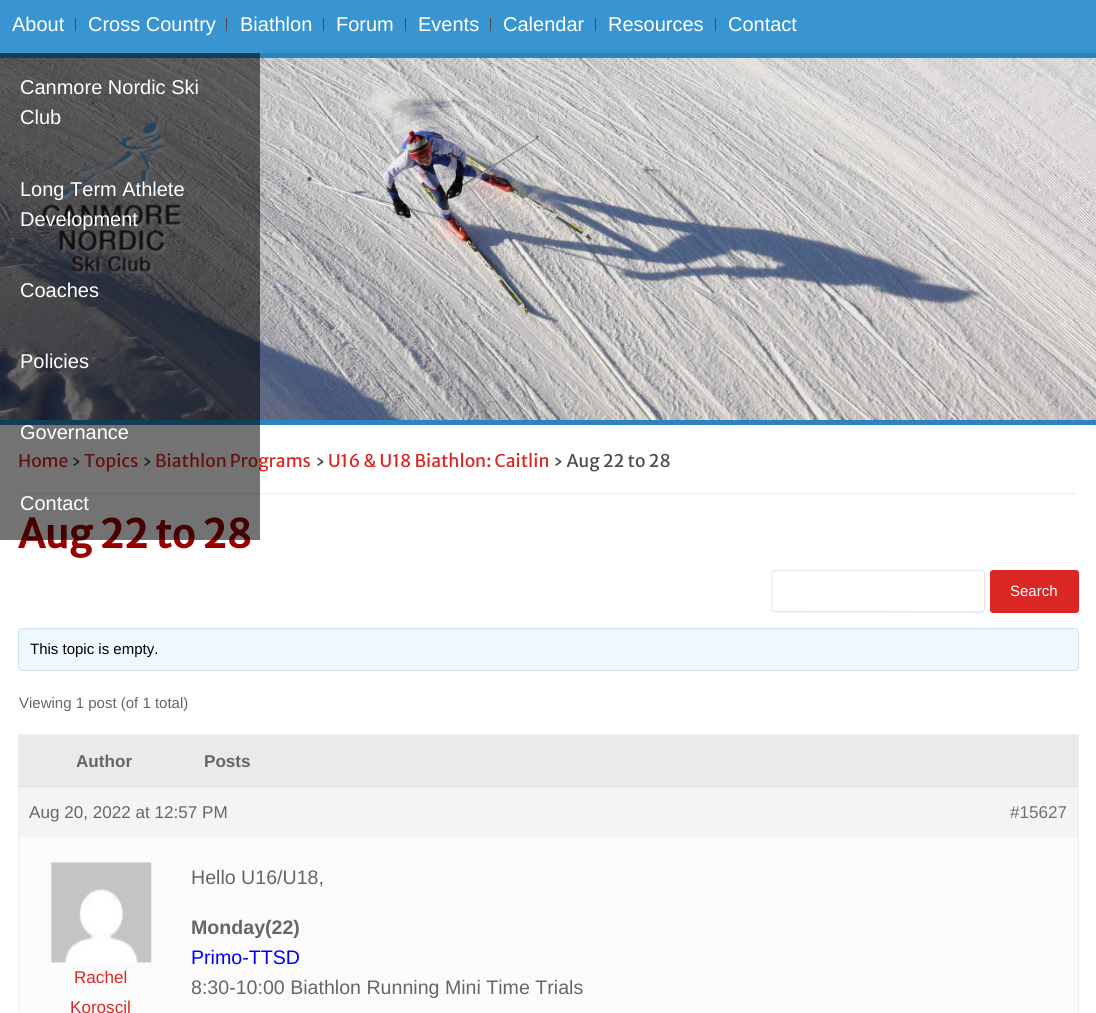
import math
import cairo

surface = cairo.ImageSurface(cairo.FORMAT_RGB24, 1096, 1013)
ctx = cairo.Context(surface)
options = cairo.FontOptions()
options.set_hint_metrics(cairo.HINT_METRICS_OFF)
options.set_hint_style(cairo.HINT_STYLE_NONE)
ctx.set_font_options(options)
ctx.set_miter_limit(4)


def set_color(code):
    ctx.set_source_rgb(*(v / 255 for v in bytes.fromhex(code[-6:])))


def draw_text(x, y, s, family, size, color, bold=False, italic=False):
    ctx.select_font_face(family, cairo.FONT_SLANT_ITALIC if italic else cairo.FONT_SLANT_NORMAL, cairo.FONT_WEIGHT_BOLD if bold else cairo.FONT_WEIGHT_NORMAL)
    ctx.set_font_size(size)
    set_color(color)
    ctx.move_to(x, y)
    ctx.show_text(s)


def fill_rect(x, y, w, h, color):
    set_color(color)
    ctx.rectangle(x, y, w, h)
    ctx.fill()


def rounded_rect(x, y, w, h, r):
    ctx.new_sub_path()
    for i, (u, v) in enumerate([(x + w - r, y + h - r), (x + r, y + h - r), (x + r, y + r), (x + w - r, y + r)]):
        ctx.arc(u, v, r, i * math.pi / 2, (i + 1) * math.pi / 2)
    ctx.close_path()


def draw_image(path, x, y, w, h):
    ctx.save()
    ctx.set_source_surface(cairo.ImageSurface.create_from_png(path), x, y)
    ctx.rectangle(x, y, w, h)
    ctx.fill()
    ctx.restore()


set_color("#ffffff")
ctx.paint()
fill_rect(0, 0, 1096, 53, "#3995d1")
fill_rect(0, 53, 1096, 5, "#2b84bd")
draw_text(12, 31, "About", "Liberation Sans", 20, "#ffffff")
fill_rect(75, 18, 1, 13, "#4e4e4e")
draw_image("assets/img1.png", 0, 58, 1096, 362)
fill_rect(0, 420, 1096, 5, "#2b84bd")
draw_image("assets/img2.png", 42, 122, 142, 154)
fill_rect(20, 493, 1056, 1, "#ebebeb")
draw_text(18, 467, "Home", "Merriweather Sans", 17.5, "#db2723")
draw_text(71, 467, "›", "Merriweather Sans", 17.5, "#4d4d4d")
draw_text(84, 467, "Topics", "Merriweather Sans", 17.5, "#db2723")
draw_text(142, 467, "›", "Merriweather Sans", 17.5, "#4d4d4d")
draw_text(155, 467, "Biathlon Programs", "Merriweather Sans", 17.5, "#db2723")
draw_text(18, 548, "Aug 22 to 28", "Merriweather Sans", 39.25, "#990000", bold=True)
ctx.set_source_rgba(0, 0, 0, 0.55)
ctx.rectangle(0, 53, 260, 487)
ctx.fill()
draw_text(20, 94, "Canmore Nordic Ski", "Liberation Sans", 20, "#ffffff")
draw_text(20, 124, "Club", "Liberation Sans", 20, "#ffffff")
draw_text(20, 196, "Long Term Athlete", "Liberation Sans", 20, "#ffffff")
draw_text(20, 226, "Development", "Liberation Sans", 20, "#ffffff")
draw_text(20, 297, "Coaches", "Liberation Sans", 20, "#ffffff")
draw_text(20, 368, "Policies", "Liberation Sans", 20, "#ffffff")
draw_text(20, 439, "Governance", "Liberation Sans", 20, "#ffffff")
draw_text(20, 510, "Contact", "Liberation Sans", 20, "#ffffff")
draw_text(240, 31, "Biathlon", "Liberation Sans", 20, "#ffffff")
fill_rect(323, 18, 1, 13, "#4e4e4e")
draw_text(503, 31, "Calendar", "Liberation Sans", 20, "#ffffff")
fill_rect(595, 18, 1, 13, "#4e4e4e")
draw_text(88, 31, "Cross Country", "Liberation Sans", 20, "#ffffff")
fill_rect(226, 18, 1, 13, "#4e4e4e")
draw_text(336, 31, "Forum", "Liberation Sans", 20, "#ffffff")
fill_rect(405, 18, 1, 13, "#4e4e4e")
draw_text(418, 31, "Events", "Liberation Sans", 20, "#ffffff")
fill_rect(490, 18, 1, 13, "#4e4e4e")
draw_text(608, 31, "Resources", "Liberation Sans", 20, "#ffffff")
fill_rect(715, 18, 1, 13, "#4e4e4e")
draw_text(728, 31, "Contact", "Liberation Sans", 20, "#ffffff")
draw_text(315, 467, "›", "Merriweather Sans", 17.5, "#4d4d4d")
draw_text(328, 467, "U16 & U18 Biathlon: Caitlin", "Merriweather Sans", 17.5, "#db2723")
draw_text(553, 467, "› Aug 22 to 28", "Merriweather Sans", 17.5, "#4d4d4d")
ctx.save()
ctx.rectangle(18, 570, 1061, 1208)
ctx.clip()
ctx.new_path()
ctx.move_to(772.5, 571.5)
ctx.line_to(775, 570.5)
ctx.line_to(981.5, 570.5)
ctx.line_to(983.5, 571.5)
set_color("#e8e8e8")
ctx.set_line_width(1.2)
ctx.stroke()
ctx.restore()
ctx.new_path()
ctx.move_to(983.5, 571.5)
ctx.curve_to(985.5, 573.5, 984.5, 578, 984.5, 579.5)
ctx.line_to(984.5, 603)
ctx.curve_to(984.5, 605, 985.5, 612, 981.5, 612)
ctx.line_to(773.5, 611.5)
ctx.line_to(772.5, 611)
set_color("#e1e1e1")
ctx.set_line_width(1.2)
ctx.stroke()
ctx.new_path()
ctx.move_to(772.5, 611)
ctx.curve_to(772, 610.5, 772, 609.5, 772, 609)
ctx.line_to(772, 573.5)
ctx.curve_to(772, 573, 772, 572, 772.5, 571.5)
set_color("#ebebeb")
ctx.stroke()
set_color("#db2723")
rounded_rect(990, 570, 89, 43, 3)
ctx.fill()
draw_text(1010, 596, "Search", "Liberation Sans", 15, "#ffffff")
set_color("#f0f8ff")
rounded_rect(18.5, 628.5, 1060, 42, 3.5)
ctx.fill_preserve()
set_color("#cee1ef")
ctx.set_line_width(1)
ctx.stroke()
draw_text(30, 654, "This topic is empty.", "Liberation Sans", 15, "#000000")
draw_text(19, 708, "Viewing 1 post (of 1 total)", "Liberation Sans", 15, "#666666")
ctx.rectangle(18.5, 734.5, 1060, 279)
set_color("#eeeeee")
ctx.stroke()
fill_rect(19, 736, 1059, 50, "#eaeaea")
fill_rect(19, 735, 1059, 1, "#eeeeee")
draw_text(76, 767, "Author", "Liberation Sans", 17.1, "#666666", bold=True)
draw_text(204, 767, "Posts", "Liberation Sans", 17.1, "#666666", bold=True)
fill_rect(19, 787, 1059, 51, "#f4f4f4")
fill_rect(19, 786, 1059, 1, "#dddddd")
draw_text(29, 818, "Aug 20, 2022 at 12:57 PM", "Liberation Sans", 17.1, "#666666")
draw_text(1010, 818, "#15627", "Liberation Sans", 17.1, "#707070")
fill_rect(19, 838, 1059, 175, "#fbfbfb")
draw_image("assets/img3.png", 51, 862, 101, 101)
draw_text(74, 983, "Rachel", "Liberation Sans", 17.1, "#db2723")
draw_text(70, 1013, "Koroscil", "Liberation Sans", 17.1, "#db2723")
draw_text(191, 884, "Hello U16/U18,", "Liberation Sans", 19.6, "#666666")
draw_text(191, 934, "Monday(22)", "Liberation Sans", 19.6, "#666666", bold=True)
draw_text(191, 964, "Primo-TTSD", "Liberation Sans", 19.6, "#0000ff")
draw_text(191, 994, "8:30-10:00 Biathlon Running Mini Time Trials", "Liberation Sans", 19.6, "#666666")
surface.write_to_png("output.png")
